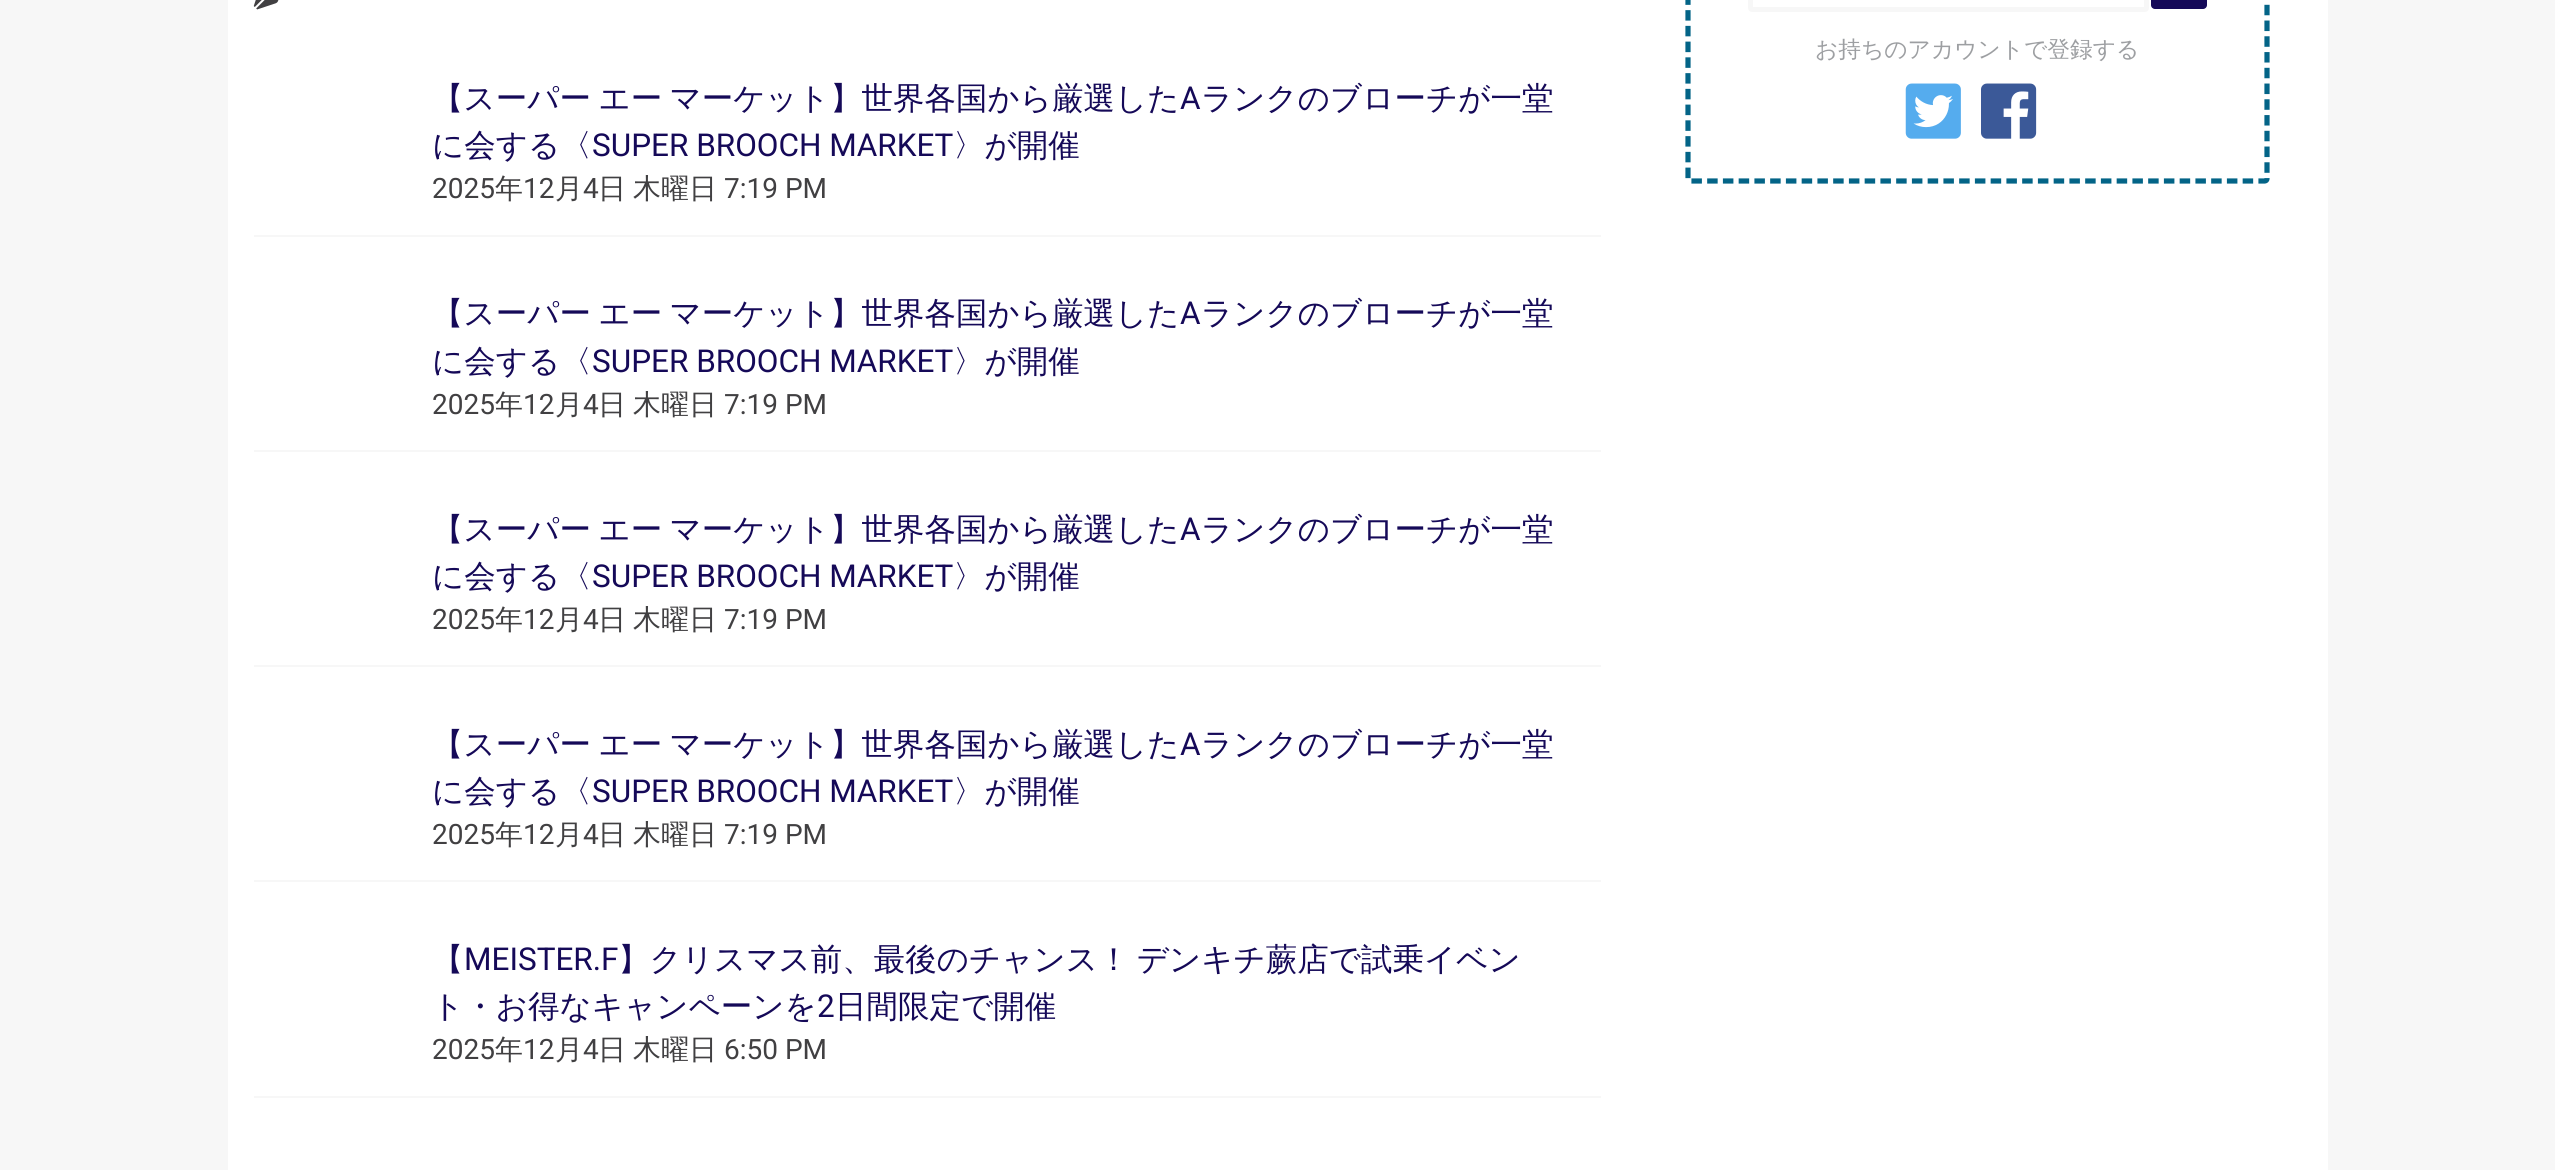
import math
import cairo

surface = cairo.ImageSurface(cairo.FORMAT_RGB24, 2555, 1170)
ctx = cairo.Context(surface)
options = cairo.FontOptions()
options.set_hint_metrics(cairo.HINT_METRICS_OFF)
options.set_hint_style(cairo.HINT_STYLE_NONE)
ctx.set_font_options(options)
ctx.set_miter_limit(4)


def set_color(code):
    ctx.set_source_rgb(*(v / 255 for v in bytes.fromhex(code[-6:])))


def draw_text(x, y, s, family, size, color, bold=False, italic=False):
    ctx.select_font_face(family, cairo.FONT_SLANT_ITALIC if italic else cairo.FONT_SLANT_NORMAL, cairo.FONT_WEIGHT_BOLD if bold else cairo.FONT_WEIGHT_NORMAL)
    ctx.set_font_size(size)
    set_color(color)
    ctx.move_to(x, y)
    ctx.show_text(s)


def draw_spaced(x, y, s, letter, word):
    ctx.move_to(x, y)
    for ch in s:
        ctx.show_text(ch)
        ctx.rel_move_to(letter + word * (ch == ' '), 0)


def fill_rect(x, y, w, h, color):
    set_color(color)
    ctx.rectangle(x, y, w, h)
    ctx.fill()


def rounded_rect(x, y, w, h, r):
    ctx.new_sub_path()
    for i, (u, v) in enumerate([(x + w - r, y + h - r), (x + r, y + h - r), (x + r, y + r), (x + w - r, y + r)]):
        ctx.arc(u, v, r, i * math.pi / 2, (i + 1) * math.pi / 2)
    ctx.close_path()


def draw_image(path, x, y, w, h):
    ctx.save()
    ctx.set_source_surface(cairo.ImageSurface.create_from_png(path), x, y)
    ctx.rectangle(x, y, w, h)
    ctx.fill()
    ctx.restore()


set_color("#f7f7f7")
ctx.paint()
fill_rect(228, 0, 2100, 1170, "#ffffff")
ctx.new_path()
ctx.move_to(1690.5, -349)
ctx.line_to(2264.5, -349)
ctx.curve_to(2266, -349, 2267, -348, 2267, -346.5)
ctx.line_to(2267, 178.5)
ctx.curve_to(2267, 180, 2266, 181, 2264.5, 181)
ctx.line_to(1690.5, 181)
ctx.curve_to(1689, 181, 1688, 180, 1688, 178.5)
ctx.line_to(1688, -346.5)
ctx.curve_to(1688, -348, 1689, -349, 1690.5, -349)
ctx.close_path()
set_color("#036487")
ctx.set_line_width(5.2)
ctx.set_dash([10.5, 5.25])
ctx.stroke()
rounded_rect(1750.5, -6.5, 396, 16, 1.5)
set_color("#f7f7f7")
ctx.set_line_width(5)
ctx.set_dash([])
ctx.stroke()
set_color("#150958")
rounded_rect(2151, -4, 56, 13, 4)
ctx.fill()
draw_text(1815, 57, "お持ちのアカウントで登録する", "WenQuanYi Zen Hei Medium", 22.75, "#9d9fa2")
draw_image("assets/img1.png", 1905, 83, 56, 56)
draw_image("assets/img2.png", 1981, 83, 56, 56)
draw_image("assets/img3.png", 253, 0, 26, 10)
fill_rect(254, 235, 1347, 2, "#f7f7f7")
ctx.set_font_size(31.5)
set_color("#150958")
draw_spaced(432, 109, "【スーパー エー マーケット】世界各国から厳選した", 0, -2)
draw_text(1180, 109, "A", "Roboto", 31.5, "#150958")
draw_text(1201, 109, "ランクのブローチが一堂", "WenQuanYi Zen Hei Medium", 31.5, "#150958")
draw_text(432, 156, "に会する〈", "WenQuanYi Zen Hei Medium", 31.5, "#150958")
draw_text(592, 156, "SUPER BROOCH MARKET", "Roboto", 31.5, "#150958")
draw_text(953, 156, "〉が開催", "WenQuanYi Zen Hei Medium", 31.5, "#150958")
draw_text(432, 198, "2025", "Roboto", 28, "#414042")
draw_text(495, 198, "年", "WenQuanYi Zen Hei Medium", 28, "#414042")
draw_text(523, 198, "12", "Roboto", 28, "#414042")
draw_text(555, 198, "月", "WenQuanYi Zen Hei Medium", 28, "#414042")
draw_text(583, 198, "4", "Roboto", 28, "#414042")
draw_text(598, 198, "日", "WenQuanYi Zen Hei Medium", 28, "#414042")
draw_text(633, 198, "木曜日", "WenQuanYi Zen Hei Medium", 28, "#414042")
draw_text(724, 198, "7:19 PM", "Roboto", 28, "#414042")
fill_rect(254, 450, 1347, 2, "#f7f7f7")
ctx.select_font_face("WenQuanYi Zen Hei Medium")
ctx.set_font_size(31.5)
set_color("#150958")
draw_spaced(432, 324, "【スーパー エー マーケット】世界各国から厳選した", 0, -2)
draw_text(1180, 324, "A", "Roboto", 31.5, "#150958")
draw_text(1201, 324, "ランクのブローチが一堂", "WenQuanYi Zen Hei Medium", 31.5, "#150958")
draw_text(432, 372, "に会する〈", "WenQuanYi Zen Hei Medium", 31.5, "#150958")
draw_text(592, 372, "SUPER BROOCH MARKET", "Roboto", 31.5, "#150958")
draw_text(953, 372, "〉が開催", "WenQuanYi Zen Hei Medium", 31.5, "#150958")
draw_text(432, 414, "2025", "Roboto", 28, "#414042")
draw_text(495, 414, "年", "WenQuanYi Zen Hei Medium", 28, "#414042")
draw_text(523, 414, "12", "Roboto", 28, "#414042")
draw_text(555, 414, "月", "WenQuanYi Zen Hei Medium", 28, "#414042")
draw_text(583, 414, "4", "Roboto", 28, "#414042")
draw_text(598, 414, "日", "WenQuanYi Zen Hei Medium", 28, "#414042")
draw_text(633, 414, "木曜日", "WenQuanYi Zen Hei Medium", 28, "#414042")
draw_text(724, 414, "7:19 PM", "Roboto", 28, "#414042")
fill_rect(254, 665, 1347, 2, "#f7f7f7")
ctx.select_font_face("WenQuanYi Zen Hei Medium")
ctx.set_font_size(31.5)
set_color("#150958")
draw_spaced(432, 540, "【スーパー エー マーケット】世界各国から厳選した", 0, -2)
draw_text(1180, 540, "A", "Roboto", 31.5, "#150958")
draw_text(1201, 540, "ランクのブローチが一堂", "WenQuanYi Zen Hei Medium", 31.5, "#150958")
draw_text(432, 587, "に会する〈", "WenQuanYi Zen Hei Medium", 31.5, "#150958")
draw_text(592, 587, "SUPER BROOCH MARKET", "Roboto", 31.5, "#150958")
draw_text(953, 587, "〉が開催", "WenQuanYi Zen Hei Medium", 31.5, "#150958")
draw_text(432, 629, "2025", "Roboto", 28, "#414042")
draw_text(495, 629, "年", "WenQuanYi Zen Hei Medium", 28, "#414042")
draw_text(523, 629, "12", "Roboto", 28, "#414042")
draw_text(555, 629, "月", "WenQuanYi Zen Hei Medium", 28, "#414042")
draw_text(583, 629, "4", "Roboto", 28, "#414042")
draw_text(598, 629, "日", "WenQuanYi Zen Hei Medium", 28, "#414042")
draw_text(633, 629, "木曜日", "WenQuanYi Zen Hei Medium", 28, "#414042")
draw_text(724, 629, "7:19 PM", "Roboto", 28, "#414042")
fill_rect(254, 880, 1347, 2, "#f7f7f7")
ctx.select_font_face("WenQuanYi Zen Hei Medium")
ctx.set_font_size(31.5)
set_color("#150958")
draw_spaced(432, 755, "【スーパー エー マーケット】世界各国から厳選した", 0, -2)
draw_text(1180, 755, "A", "Roboto", 31.5, "#150958")
draw_text(1201, 755, "ランクのブローチが一堂", "WenQuanYi Zen Hei Medium", 31.5, "#150958")
draw_text(432, 802, "に会する〈", "WenQuanYi Zen Hei Medium", 31.5, "#150958")
draw_text(592, 802, "SUPER BROOCH MARKET", "Roboto", 31.5, "#150958")
draw_text(953, 802, "〉が開催", "WenQuanYi Zen Hei Medium", 31.5, "#150958")
draw_text(432, 844, "2025", "Roboto", 28, "#414042")
draw_text(495, 844, "年", "WenQuanYi Zen Hei Medium", 28, "#414042")
draw_text(523, 844, "12", "Roboto", 28, "#414042")
draw_text(555, 844, "月", "WenQuanYi Zen Hei Medium", 28, "#414042")
draw_text(583, 844, "4", "Roboto", 28, "#414042")
draw_text(598, 844, "日", "WenQuanYi Zen Hei Medium", 28, "#414042")
draw_text(633, 844, "木曜日", "WenQuanYi Zen Hei Medium", 28, "#414042")
draw_text(724, 844, "7:19 PM", "Roboto", 28, "#414042")
fill_rect(254, 1096, 1347, 2, "#f7f7f7")
draw_text(432, 970, "【", "WenQuanYi Zen Hei Medium", 31.5, "#150958")
draw_text(464, 970, "MEISTER.F", "Roboto", 31.5, "#150958")
ctx.select_font_face("WenQuanYi Zen Hei Medium")
draw_spaced(618, 970, "】クリスマス前、最後のチャンス！ デンキチ蕨店で試乗イベン", 0, -2)
draw_text(432, 1017, "ト・お得なキャンペーンを", "WenQuanYi Zen Hei Medium", 31.5, "#150958")
draw_text(817, 1017, "2", "Roboto", 31.5, "#150958")
draw_text(835, 1017, "日間限定で開催", "WenQuanYi Zen Hei Medium", 31.5, "#150958")
draw_text(432, 1059, "2025", "Roboto", 28, "#414042")
draw_text(495, 1059, "年", "WenQuanYi Zen Hei Medium", 28, "#414042")
draw_text(523, 1059, "12", "Roboto", 28, "#414042")
draw_text(555, 1059, "月", "WenQuanYi Zen Hei Medium", 28, "#414042")
draw_text(583, 1059, "4", "Roboto", 28, "#414042")
draw_text(598, 1059, "日", "WenQuanYi Zen Hei Medium", 28, "#414042")
draw_text(633, 1059, "木曜日", "WenQuanYi Zen Hei Medium", 28, "#414042")
draw_text(724, 1059, "6:50 PM", "Roboto", 28, "#414042")
surface.write_to_png("output.png")
